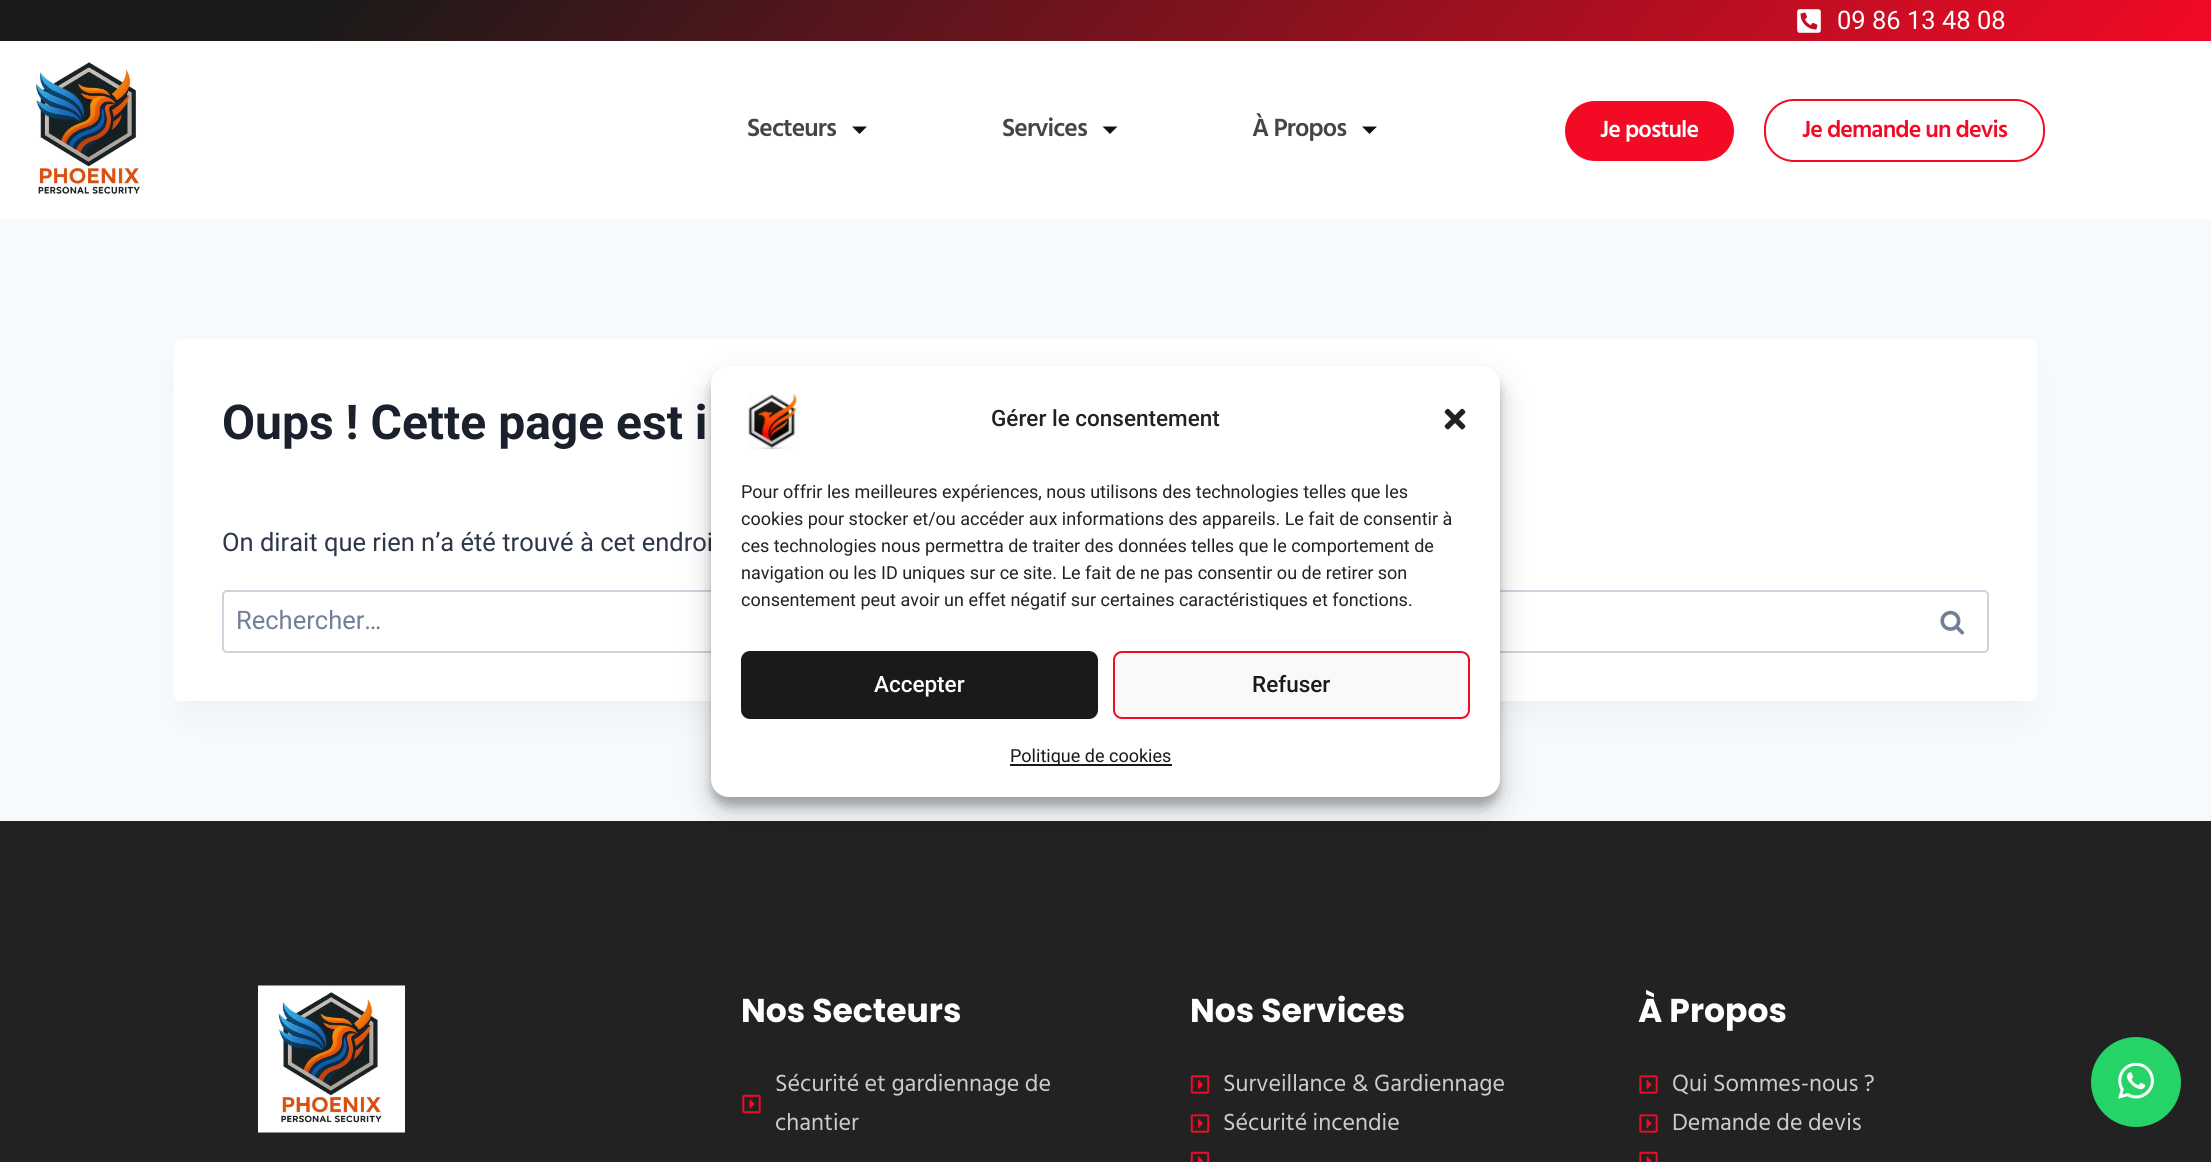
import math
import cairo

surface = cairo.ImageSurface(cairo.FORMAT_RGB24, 2211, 1162)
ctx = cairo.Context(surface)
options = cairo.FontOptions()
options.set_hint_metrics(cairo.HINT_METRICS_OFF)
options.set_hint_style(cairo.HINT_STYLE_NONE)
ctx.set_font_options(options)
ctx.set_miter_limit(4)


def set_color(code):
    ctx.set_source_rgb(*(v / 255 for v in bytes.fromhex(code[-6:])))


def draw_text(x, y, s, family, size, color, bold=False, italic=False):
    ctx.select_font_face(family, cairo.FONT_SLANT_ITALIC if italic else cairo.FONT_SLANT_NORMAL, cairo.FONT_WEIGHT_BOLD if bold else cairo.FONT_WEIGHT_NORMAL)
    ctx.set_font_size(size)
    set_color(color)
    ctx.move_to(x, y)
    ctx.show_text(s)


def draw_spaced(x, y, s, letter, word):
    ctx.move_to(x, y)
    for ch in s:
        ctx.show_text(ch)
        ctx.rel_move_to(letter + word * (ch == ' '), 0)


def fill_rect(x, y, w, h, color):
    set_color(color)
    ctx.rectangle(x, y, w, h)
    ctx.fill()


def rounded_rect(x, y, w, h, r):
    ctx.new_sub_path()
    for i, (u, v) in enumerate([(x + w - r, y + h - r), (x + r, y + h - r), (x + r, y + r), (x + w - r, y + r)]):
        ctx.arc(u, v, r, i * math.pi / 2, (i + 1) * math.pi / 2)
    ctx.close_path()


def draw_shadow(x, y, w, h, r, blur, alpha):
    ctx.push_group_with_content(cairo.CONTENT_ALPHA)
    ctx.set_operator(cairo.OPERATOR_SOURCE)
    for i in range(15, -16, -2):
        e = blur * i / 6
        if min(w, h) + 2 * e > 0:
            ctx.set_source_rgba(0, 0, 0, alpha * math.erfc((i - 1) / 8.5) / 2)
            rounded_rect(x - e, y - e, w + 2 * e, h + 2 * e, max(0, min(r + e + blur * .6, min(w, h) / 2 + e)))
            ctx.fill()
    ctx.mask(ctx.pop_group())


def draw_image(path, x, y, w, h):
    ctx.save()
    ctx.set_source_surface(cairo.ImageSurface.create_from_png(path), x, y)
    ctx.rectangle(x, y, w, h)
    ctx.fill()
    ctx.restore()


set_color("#f7fafc")
ctx.paint()
gradient = cairo.LinearGradient(444, -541, 1767, 569)
gradient.add_color_stop_rgba(0.15, 0.102, 0.102, 0.098, 1)
gradient.add_color_stop_rgba(1, 0.953, 0.039, 0.145, 1)
ctx.set_source(gradient)
ctx.rectangle(0, 0, 2211, 41)
ctx.fill()
draw_image("assets/img1.png", 1797, 9, 24, 24)
draw_text(1837, 29, "09 86 13 48 08", "Roboto", 25.5, "#ffffff")
fill_rect(0, 41, 2211, 178, "#ffffff")
draw_image("assets/img2.png", 36, 62, 104, 132)
ctx.select_font_face("Hind Siliguri SemiBold")
set_color("#454545")
draw_spaced(747, 136, "Secteurs", -0.9, 0)
set_color("#101010")
ctx.new_path()
ctx.move_to(852, 126.5)
ctx.line_to(867, 126.5)
ctx.line_to(859.5, 134)
ctx.close_path()
ctx.fill()
set_color("#454545")
draw_spaced(1002, 136, "Services", -0.9, 0)
set_color("#101010")
ctx.new_path()
ctx.move_to(1102.5, 126.5)
ctx.line_to(1117.5, 126.5)
ctx.line_to(1110, 134)
ctx.close_path()
ctx.fill()
set_color("#454545")
draw_spaced(1252, 136, "À Propos", -0.9, 0)
set_color("#101010")
ctx.new_path()
ctx.move_to(1362, 126.5)
ctx.line_to(1377, 126.5)
ctx.line_to(1369.5, 134)
ctx.close_path()
ctx.fill()
set_color("#f30a25")
rounded_rect(1565, 101, 169, 60, 30)
ctx.fill()
ctx.set_font_size(24)
set_color("#ffffff")
draw_spaced(1600, 137, "Je postule", -0.9, 0)
rounded_rect(1765, 100, 279, 61, 29)
set_color("#f30a25")
ctx.stroke()
draw_spaced(1802, 137, "Je demande un devis", -0.9, 0)
set_color("#000000")
draw_shadow(189, 377, 1833, 331, 0, 19, 0.05)
set_color("#ffffff")
rounded_rect(174, 339, 1863, 362, 6)
ctx.fill()
draw_text(222, 439, "Oups ! Cette page est i", "Roboto", 48, "#1a202c", bold=True)
draw_text(222, 551, "On dirait que rien n’a été trouvé à cet endroi", "Roboto", 25.5, "#2d3748")
rounded_rect(223, 591, 1765, 61, 4)
set_color("#cbd5e0")
ctx.stroke()
draw_text(236, 629, "Rechercher…", "Roboto", 25.5, "#718096")
draw_image("assets/img3.png", 1940, 610, 25, 25)
set_color("#000000")
draw_shadow(711, 375, 789, 431, 18, 4.5, 0.23)
fill_rect(0, 821, 2211, 341, "#222222")
set_color("#000000")
draw_shadow(711, 381, 789, 431, 18, 15, 0.19)
set_color("#ffffff")
rounded_rect(711, 366, 789, 431, 18)
ctx.fill()
draw_image("assets/img4.png", 748, 393, 50, 57)
draw_text(991, 426, "Gérer le consentement", "Roboto Medium", 22.5, "#222222")
draw_image("assets/img5.png", 1444, 408, 22, 22)
draw_text(741, 498, "Pour offrir les meilleures expériences, nous utilisons des technologies telles que les", "Roboto", 18, "#222222")
draw_text(741, 525, "cookies pour stocker et/ou accéder aux informations des appareils. Le fait de consentir à", "Roboto", 18, "#222222")
draw_text(741, 552, "ces technologies nous permettra de traiter des données telles que le comportement de", "Roboto", 18, "#222222")
draw_text(741, 579, "navigation ou les ID uniques sur ce site. Le fait de ne pas consentir ou de retirer son", "Roboto", 18, "#222222")
draw_text(741, 606, "consentement peut avoir un effet négatif sur certaines caractéristiques et fonctions.", "Roboto", 18, "#222222")
set_color("#1a1a18")
rounded_rect(742, 652, 355, 66, 8)
ctx.fill_preserve()
ctx.stroke()
draw_text(874, 692, "Accepter", "Roboto Medium", 22.5, "#ffffff")
set_color("#f9f9f9")
rounded_rect(1114, 652, 355, 66, 8)
ctx.fill_preserve()
set_color("#f30a25")
ctx.stroke()
draw_text(1252, 692, "Refuser", "Roboto Medium", 22.5, "#1a1a18")
fill_rect(1010, 764, 162, 2, "#1a1a18")
draw_text(1010, 762, "Politique de cookies", "Roboto", 18, "#1a1a18")
draw_image("assets/img6.png", 258, 985, 147, 148)
draw_text(741, 1022, "Nos Secteurs", "Poppins", 33, "#ffffff", bold=True)
draw_image("assets/img7.png", 742, 1094, 19, 20)
draw_text(775, 1091, "Sécurité et gardiennage de", "Hind Siliguri", 24, "#cccccc")
draw_text(775, 1130, "chantier", "Hind Siliguri", 24, "#cccccc")
draw_text(1190, 1022, "Nos Services", "Poppins", 33, "#ffffff", bold=True)
draw_image("assets/img8.png", 1190, 1075, 20, 19)
draw_text(1223, 1091, "Surveillance & Gardiennage", "Hind Siliguri", 24, "#cccccc")
draw_image("assets/img8.png", 1190, 1114, 20, 19)
draw_text(1223, 1130, "Sécurité incendie", "Hind Siliguri", 24, "#cccccc")
draw_image("assets/img9.png", 1190, 1151, 20, 11)
draw_text(1638, 1022, "À Propos", "Poppins", 33, "#ffffff", bold=True)
draw_image("assets/img10.png", 1639, 1075, 19, 19)
draw_text(1672, 1091, "Qui Sommes-nous ?", "Hind Siliguri", 24, "#cccccc")
draw_image("assets/img10.png", 1639, 1114, 19, 19)
draw_text(1672, 1130, "Demande de devis", "Hind Siliguri", 24, "#cccccc")
draw_image("assets/img11.png", 1639, 1151, 19, 11)
set_color("#25d366")
ctx.arc(2136, 1082, 45, 0, 2 * math.pi)
ctx.fill()
draw_image("assets/img12.png", 2118, 1062, 36, 37)
surface.write_to_png("output.png")
